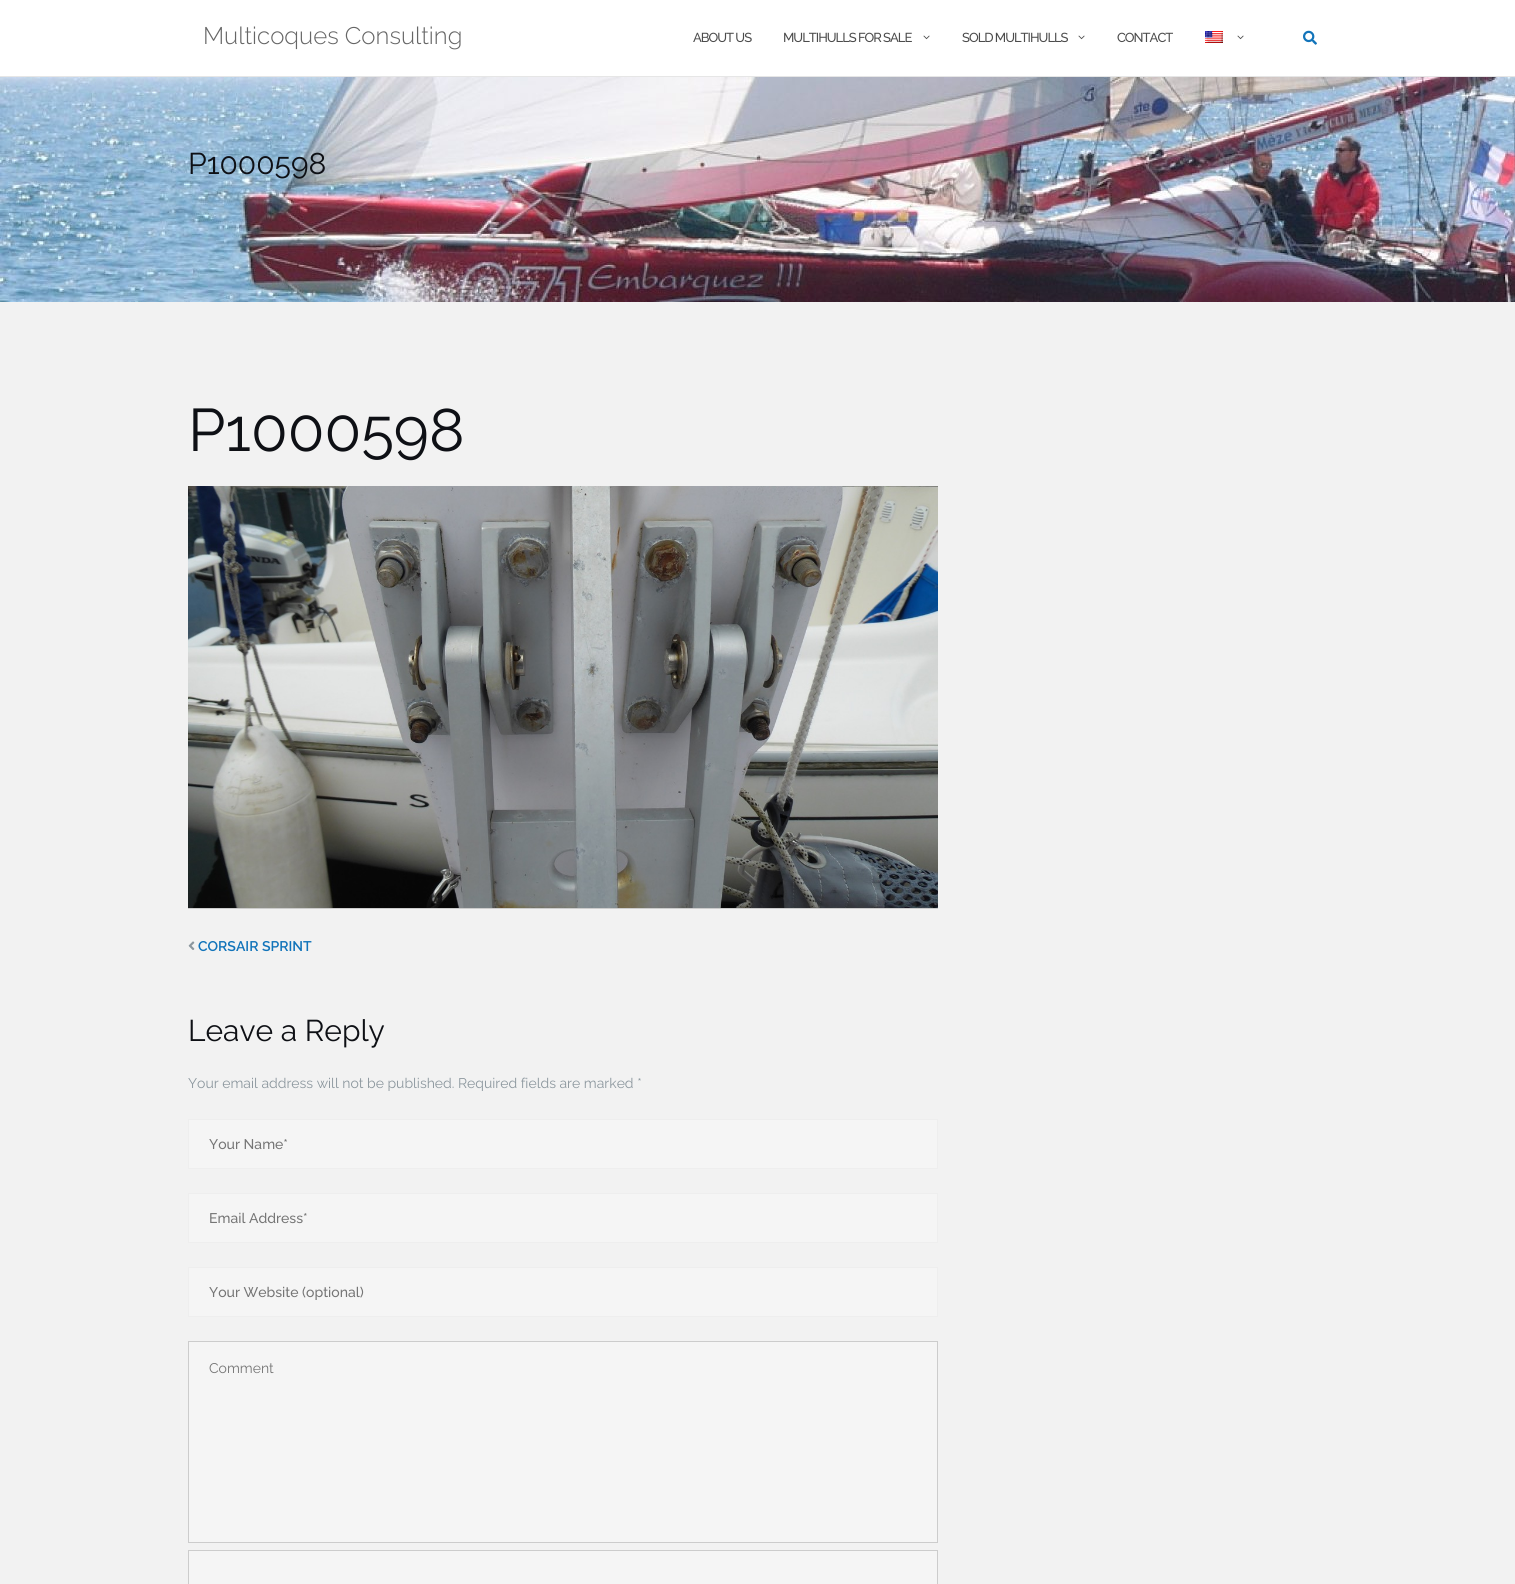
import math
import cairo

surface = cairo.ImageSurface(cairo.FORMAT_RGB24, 1515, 1584)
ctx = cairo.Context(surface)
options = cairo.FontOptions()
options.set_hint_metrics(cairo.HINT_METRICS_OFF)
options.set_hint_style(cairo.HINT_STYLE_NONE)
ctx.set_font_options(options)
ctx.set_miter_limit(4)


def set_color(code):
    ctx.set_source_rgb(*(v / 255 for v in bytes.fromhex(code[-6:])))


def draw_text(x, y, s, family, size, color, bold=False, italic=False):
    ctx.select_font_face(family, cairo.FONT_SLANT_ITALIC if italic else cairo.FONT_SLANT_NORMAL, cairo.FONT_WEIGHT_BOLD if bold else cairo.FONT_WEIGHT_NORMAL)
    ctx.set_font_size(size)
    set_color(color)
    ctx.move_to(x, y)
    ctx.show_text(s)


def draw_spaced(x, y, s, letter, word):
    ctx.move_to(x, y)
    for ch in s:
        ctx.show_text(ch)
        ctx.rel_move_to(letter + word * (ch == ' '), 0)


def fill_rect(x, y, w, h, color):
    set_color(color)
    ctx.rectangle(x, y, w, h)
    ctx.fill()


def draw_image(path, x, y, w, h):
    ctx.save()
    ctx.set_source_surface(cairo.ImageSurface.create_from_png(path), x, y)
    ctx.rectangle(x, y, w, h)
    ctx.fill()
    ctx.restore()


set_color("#f2f2f2")
ctx.paint()
fill_rect(0, 0, 1515, 76, "#ffffff")
fill_rect(0, 76, 1515, 1, "#e6e6e6")
draw_text(203, 44, "Multicoques Consulting", "Raleway Light", 24, "#666666")
ctx.select_font_face("Raleway Medium")
ctx.set_font_size(13)
set_color("#4c4c4c")
draw_spaced(693, 42, "ABOUT US", -1, 0)
draw_spaced(783, 42, "MULTIHULLS FOR SALE", -1, 0)
draw_image("assets/img1.png", 923, 35, 7, 5)
draw_spaced(962, 42, "SOLD MULTIHULLS", -1, 0)
draw_image("assets/img1.png", 1078, 35, 7, 5)
draw_spaced(1117, 42, "CONTACT", -1, 0)
draw_image("assets/img2.png", 1205, 31, 18, 12)
draw_image("assets/img1.png", 1237, 35, 7, 5)
draw_image("assets/img3.png", 1303, 30, 14, 15)
draw_image("assets/img4.png", 0, 77, 1515, 225)
draw_text(188, 174, "P1000598", "Raleway", 30, "#0e1015")
draw_text(188, 451, "P1000598", "Raleway", 60, "#0e1015")
draw_image("assets/img5.png", 188, 486, 750, 422)
fill_rect(188, 908, 750, 1, "#cccccc")
draw_image("assets/img6.png", 188, 941, 7, 9)
draw_text(198, 951, "CORSAIR SPRINT", "Raleway SemiBold", 14, "#1274ba")
draw_text(188, 1041, "Leave a Reply", "Raleway", 30, "#0e1015")
draw_text(188, 1088, "Your email address will not be published. Required fields are marked *", "Raleway", 14, "#8c979e")
set_color("#f5f5f5")
ctx.rectangle(188.5, 1119.5, 749, 49)
ctx.fill_preserve()
set_color("#eeeeee")
ctx.set_line_width(1)
ctx.stroke()
draw_text(209, 1149, "Your Name*", "Raleway Medium", 14, "#757575")
set_color("#f5f5f5")
ctx.rectangle(188.5, 1193.5, 749, 49)
ctx.fill_preserve()
set_color("#eeeeee")
ctx.stroke()
draw_text(209, 1223, "Email Address*", "Raleway Medium", 14, "#757575")
set_color("#f5f5f5")
ctx.rectangle(188.5, 1267.5, 749, 49)
ctx.fill_preserve()
set_color("#eeeeee")
ctx.stroke()
draw_text(209, 1297, "Your Website (optional)", "Raleway Medium", 14, "#757575")
set_color("#f5f5f5")
ctx.rectangle(188.5, 1341.5, 749, 201)
ctx.fill_preserve()
set_color("#cccccc")
ctx.stroke()
draw_text(209, 1373, "Comment", "Raleway", 14, "#757575")
set_color("#f5f5f5")
ctx.rectangle(188.5, 1550.5, 749, 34)
ctx.fill_preserve()
set_color("#cccccc")
ctx.stroke()
surface.write_to_png("output.png")
